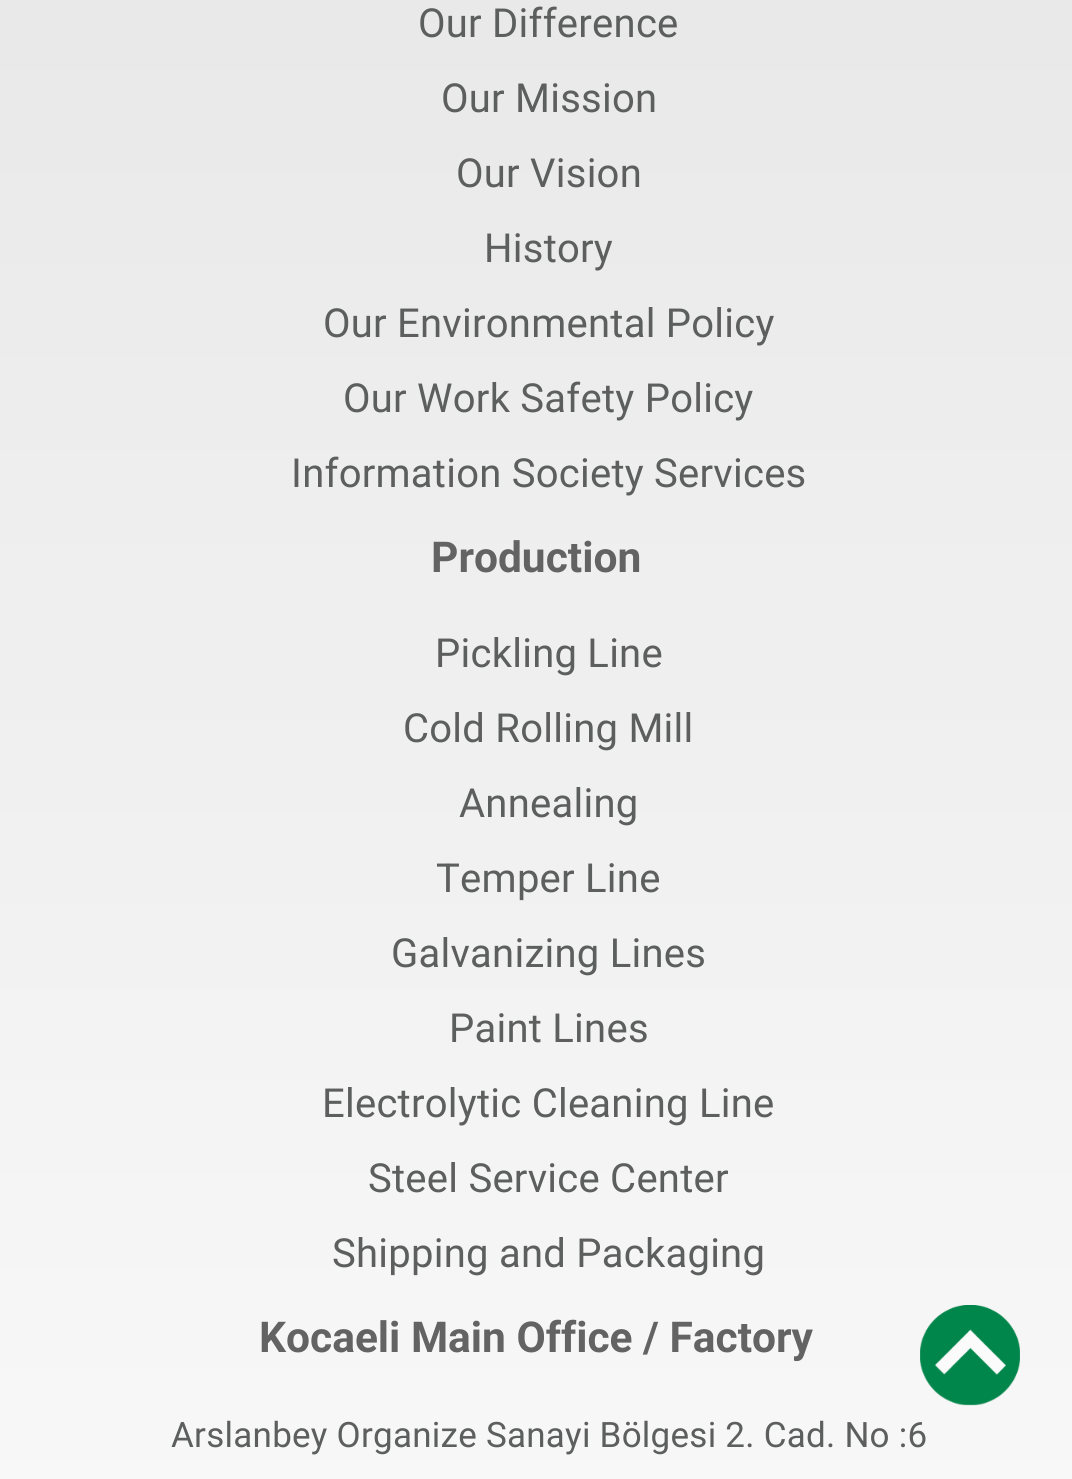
import math
import cairo

surface = cairo.ImageSurface(cairo.FORMAT_RGB24, 1072, 1479)
ctx = cairo.Context(surface)
options = cairo.FontOptions()
options.set_hint_metrics(cairo.HINT_METRICS_OFF)
options.set_hint_style(cairo.HINT_STYLE_NONE)
ctx.set_font_options(options)
ctx.set_miter_limit(4)


def set_color(code):
    ctx.set_source_rgb(*(v / 255 for v in bytes.fromhex(code[-6:])))


def draw_text(x, y, s, family, size, color, bold=False, italic=False):
    ctx.select_font_face(family, cairo.FONT_SLANT_ITALIC if italic else cairo.FONT_SLANT_NORMAL, cairo.FONT_WEIGHT_BOLD if bold else cairo.FONT_WEIGHT_NORMAL)
    ctx.set_font_size(size)
    set_color(color)
    ctx.move_to(x, y)
    ctx.show_text(s)


def draw_spaced(x, y, s, letter, word):
    ctx.move_to(x, y)
    for ch in s:
        ctx.show_text(ch)
        ctx.rel_move_to(letter + word * (ch == ' '), 0)


def draw_image(path, x, y, w, h):
    ctx.save()
    ctx.set_source_surface(cairo.ImageSurface.create_from_png(path), x, y)
    ctx.rectangle(x, y, w, h)
    ctx.fill()
    ctx.restore()


set_color("#ffffff")
ctx.paint()
draw_image("assets/img1.png", 0, 0, 1072, 1479)
ctx.select_font_face("Roboto")
ctx.set_font_size(40)
set_color("#5d5e5e")
draw_spaced(418, 37, "Our Difference", 0.25, 0)
draw_spaced(441, 112, "Our Mission", 0.25, 0)
draw_spaced(456, 187, "Our Vision", 0.25, 0)
draw_spaced(484, 262, "History", 0.25, 0)
draw_spaced(323, 337, "Our Environmental Policy", 0.25, 0)
draw_spaced(343, 412, "Our Work Safety Policy", 0.25, 0)
draw_spaced(291, 487, "Information Society Services", 0.25, 0)
draw_text(431, 572, "Production", "Roboto", 42.5, "#636363", bold=True)
ctx.select_font_face("Roboto")
ctx.set_font_size(40)
set_color("#5d5e5e")
draw_spaced(435, 667, "Pickling Line", 0.25, 0)
draw_spaced(403, 742, "Cold Rolling Mill", 0.25, 0)
draw_spaced(459, 817, "Annealing", 0.25, 0)
draw_spaced(436, 892, "Temper Line", 0.25, 0)
draw_spaced(391, 967, "Galvanizing Lines", 0.25, 0)
draw_spaced(449, 1042, "Paint Lines", 0.25, 0)
draw_spaced(322, 1117, "Electrolytic Cleaning Line", 0.25, 0)
draw_spaced(368, 1192, "Steel Service Center", 0.25, 0)
draw_spaced(332, 1267, "Shipping and Packaging", 0.25, 0)
draw_text(259, 1352, "Kocaeli Main Office / Factory", "Roboto", 42.5, "#636363", bold=True)
ctx.select_font_face("Roboto")
ctx.set_font_size(35)
set_color("#5d5e5e")
draw_spaced(171, 1447, "Arslanbey Organize Sanayi Bölgesi 2. Cad. No :6", 0.25, 0)
draw_image("assets/img2.png", 920, 1305, 100, 101)
surface.write_to_png("output.png")
